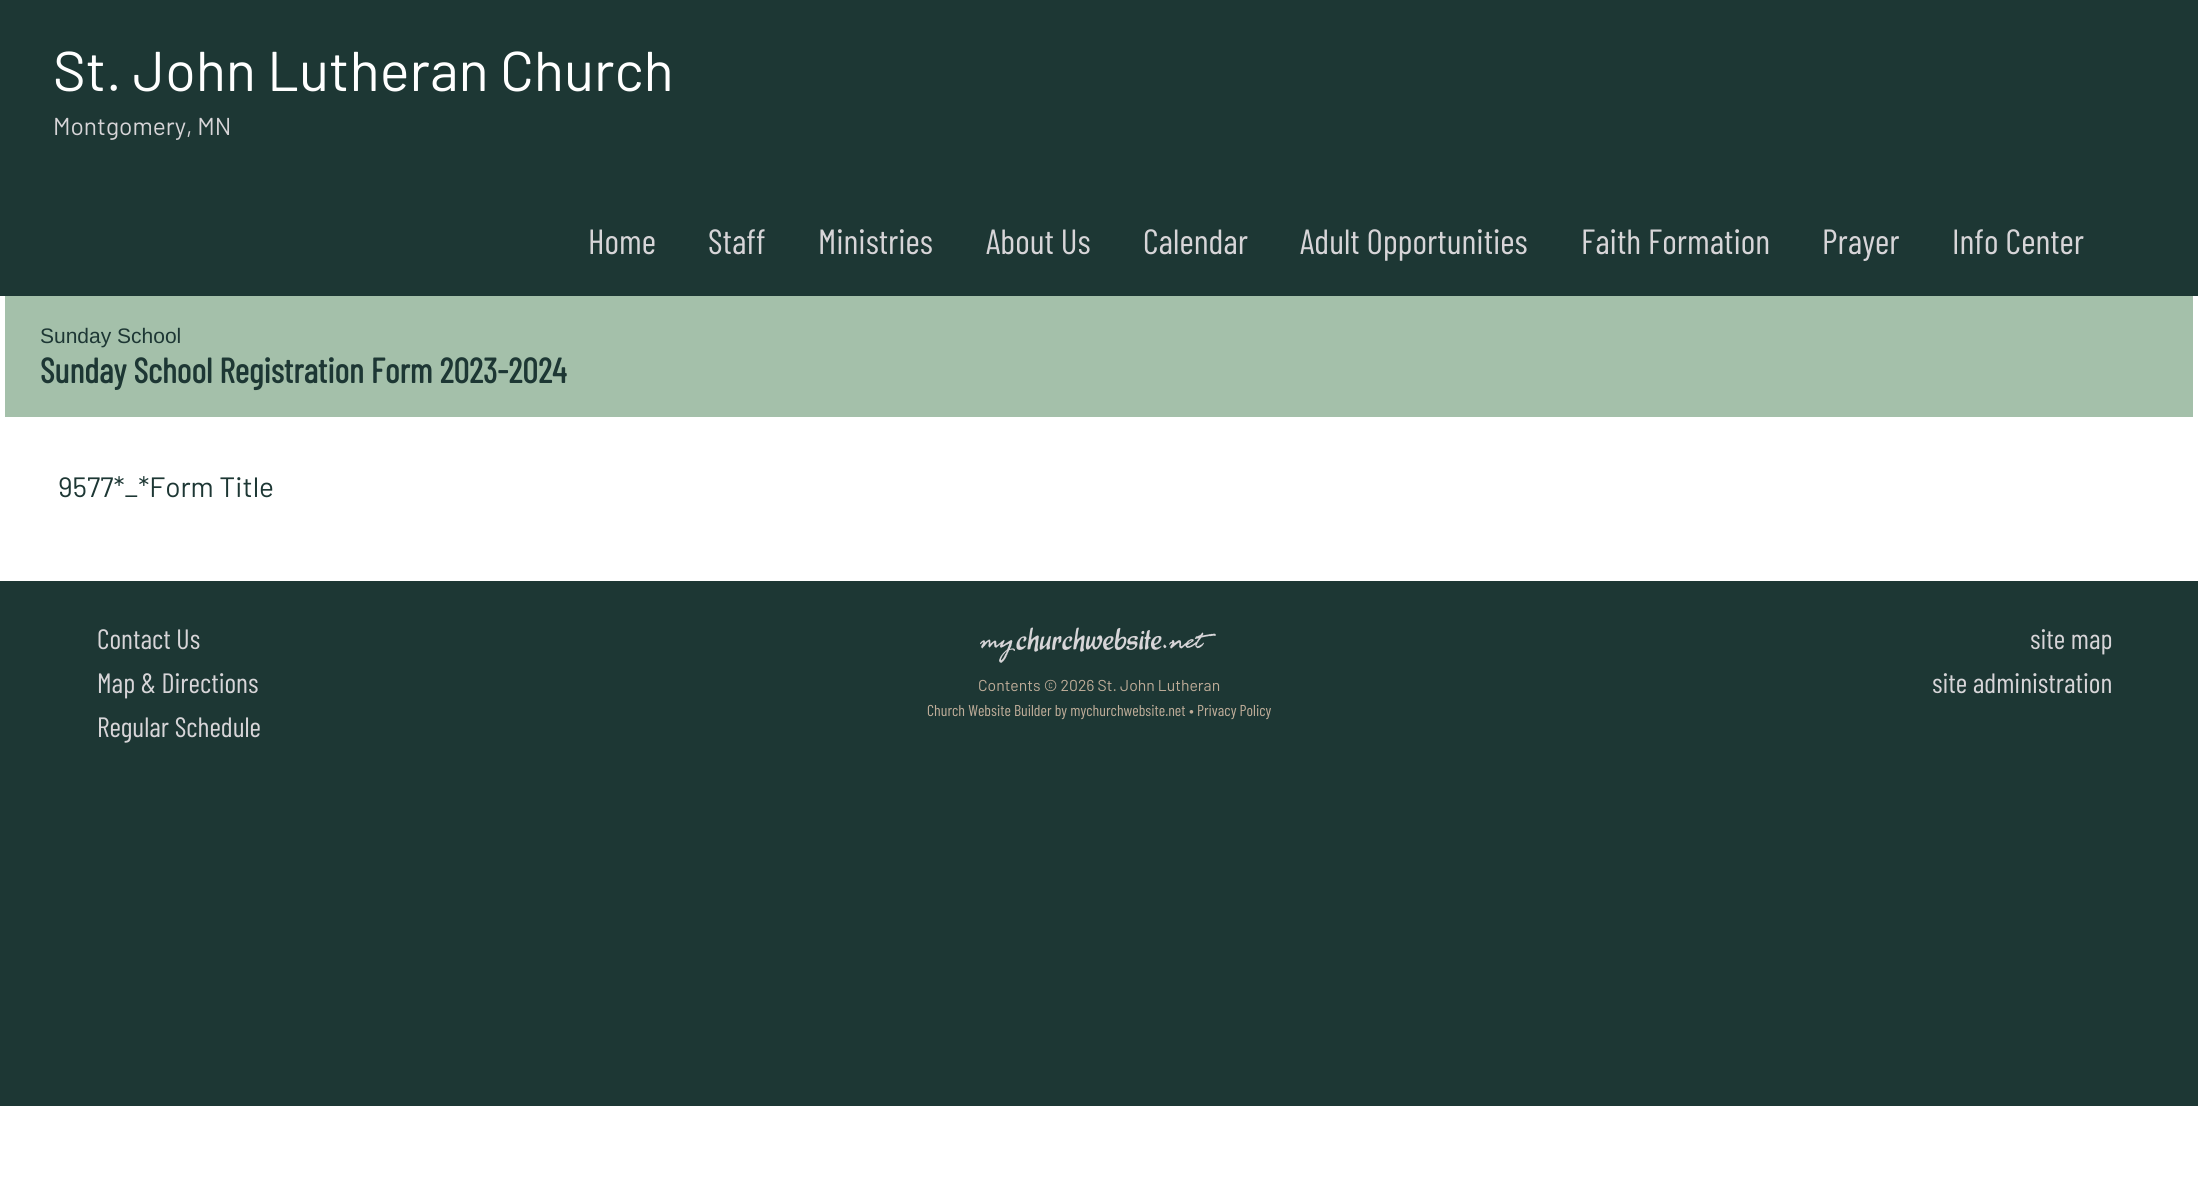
import math
import cairo

surface = cairo.ImageSurface(cairo.FORMAT_RGB24, 2198, 1189)
ctx = cairo.Context(surface)
options = cairo.FontOptions()
options.set_hint_metrics(cairo.HINT_METRICS_OFF)
options.set_hint_style(cairo.HINT_STYLE_NONE)
ctx.set_font_options(options)
ctx.set_miter_limit(4)


def set_color(code):
    ctx.set_source_rgb(*(v / 255 for v in bytes.fromhex(code[-6:])))


def draw_text(x, y, s, family, size, color, bold=False, italic=False):
    ctx.select_font_face(family, cairo.FONT_SLANT_ITALIC if italic else cairo.FONT_SLANT_NORMAL, cairo.FONT_WEIGHT_BOLD if bold else cairo.FONT_WEIGHT_NORMAL)
    ctx.set_font_size(size)
    set_color(color)
    ctx.move_to(x, y)
    ctx.show_text(s)


def fill_rect(x, y, w, h, color):
    set_color(color)
    ctx.rectangle(x, y, w, h)
    ctx.fill()


def draw_image(path, x, y, w, h):
    ctx.save()
    ctx.set_source_surface(cairo.ImageSurface.create_from_png(path), x, y)
    ctx.rectangle(x, y, w, h)
    ctx.fill()
    ctx.restore()


set_color("#ffffff")
ctx.paint()
fill_rect(0, 0, 2198, 296, "#1d3734")
draw_text(53, 91, "St. John Lutheran Church", "Barlow", 56, "#ffffff")
draw_text(53, 135, "Montgomery, MN", "Barlow", 24.5, "#d7d5d8")
draw_text(588, 254, "Home", "Barlow Condensed", 35, "#d7d5d8")
draw_text(708, 254, "Staff", "Barlow Condensed", 35, "#d7d5d8")
draw_text(818, 254, "Ministries", "Barlow Condensed", 35, "#d7d5d8")
draw_text(986, 254, "About Us", "Barlow Condensed", 35, "#d7d5d8")
draw_text(1143, 254, "Calendar", "Barlow Condensed", 35, "#d7d5d8")
draw_text(1300, 254, "Adult Opportunities", "Barlow Condensed", 35, "#d7d5d8")
draw_text(1581, 254, "Faith Formation", "Barlow Condensed", 35, "#d7d5d8")
draw_text(1822, 254, "Prayer", "Barlow Condensed", 35, "#d7d5d8")
draw_text(1952, 254, "Info Center", "Barlow Condensed", 35, "#d7d5d8")
fill_rect(5, 296, 2188, 121, "#a4c0aa")
draw_text(40, 343, "Sunday School", "Liberation Sans", 21, "#1d3734")
draw_text(40, 383, "Sunday School Registration Form 2023-2024", "Barlow Condensed", 35, "#1d3734", bold=True)
draw_text(58, 497, "9577*_*Form Title", "Barlow", 28, "#1d3734")
fill_rect(0, 581, 2198, 525, "#1d3734")
draw_text(97, 649, "Contact Us", "Barlow Condensed", 28, "#d7d5d8")
draw_text(97, 693, "Map & Directions", "Barlow Condensed", 28, "#d7d5d8")
draw_text(97, 737, "Regular Schedule", "Barlow Condensed", 28, "#d7d5d8")
draw_text(2030, 649, "site map", "Barlow Condensed", 28, "#d7d5d8")
draw_text(1932, 693, "site administration", "Barlow Condensed", 28, "#d7d5d8")
draw_image("assets/img1.png", 980, 627, 236, 36)
draw_text(978, 691, "Contents © 2026 St. John Lutheran", "Barlow", 15.75, "#bfad99")
draw_text(927, 716, "Church Website Builder by mychurchwebsite.net", "Barlow Condensed", 15.75, "#bfad99")
draw_text(1189, 716, "•", "Barlow", 15.75, "#bfad99")
draw_text(1197, 716, "Privacy Policy", "Barlow Condensed", 15.75, "#bfad99")
surface.write_to_png("output.png")
